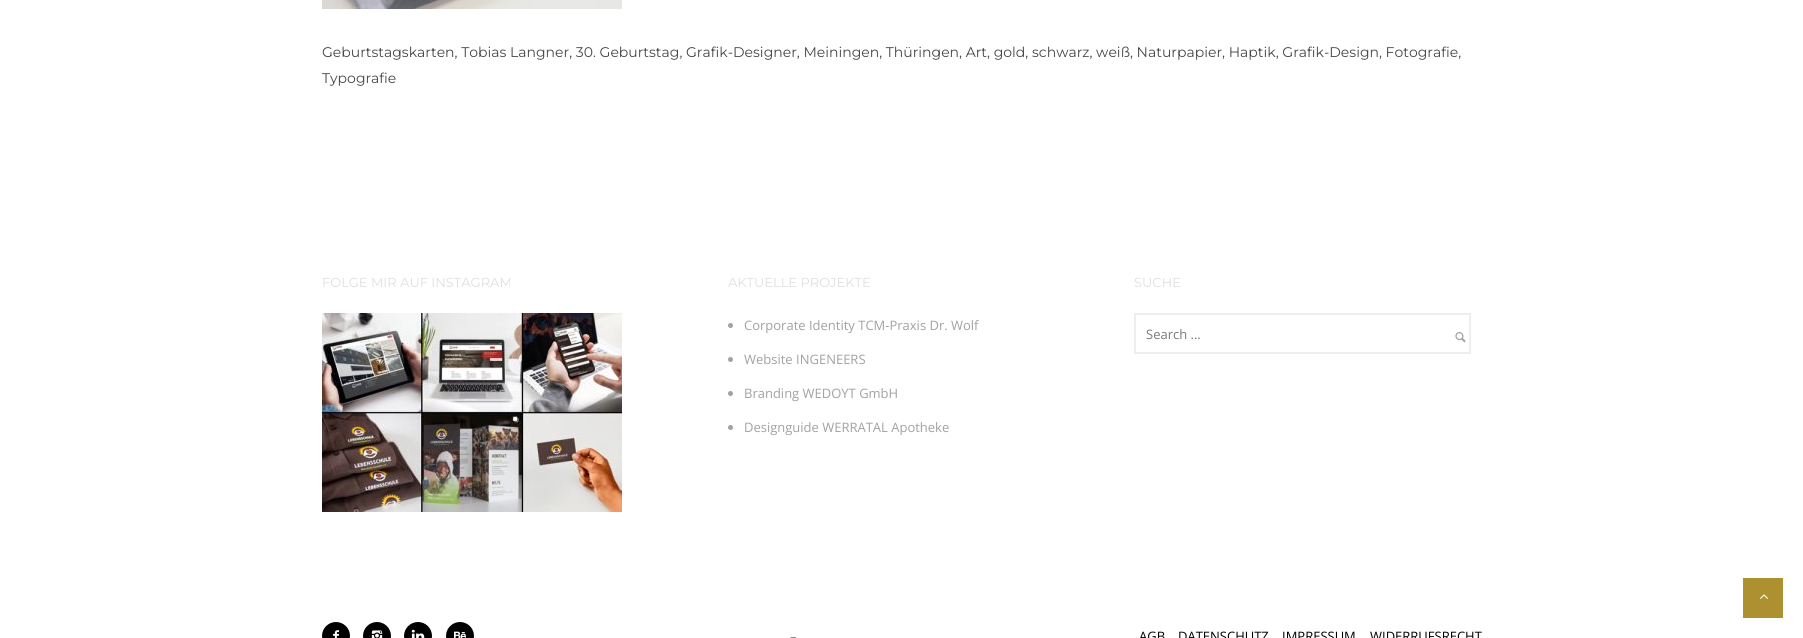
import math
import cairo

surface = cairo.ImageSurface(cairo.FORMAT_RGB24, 1803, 638)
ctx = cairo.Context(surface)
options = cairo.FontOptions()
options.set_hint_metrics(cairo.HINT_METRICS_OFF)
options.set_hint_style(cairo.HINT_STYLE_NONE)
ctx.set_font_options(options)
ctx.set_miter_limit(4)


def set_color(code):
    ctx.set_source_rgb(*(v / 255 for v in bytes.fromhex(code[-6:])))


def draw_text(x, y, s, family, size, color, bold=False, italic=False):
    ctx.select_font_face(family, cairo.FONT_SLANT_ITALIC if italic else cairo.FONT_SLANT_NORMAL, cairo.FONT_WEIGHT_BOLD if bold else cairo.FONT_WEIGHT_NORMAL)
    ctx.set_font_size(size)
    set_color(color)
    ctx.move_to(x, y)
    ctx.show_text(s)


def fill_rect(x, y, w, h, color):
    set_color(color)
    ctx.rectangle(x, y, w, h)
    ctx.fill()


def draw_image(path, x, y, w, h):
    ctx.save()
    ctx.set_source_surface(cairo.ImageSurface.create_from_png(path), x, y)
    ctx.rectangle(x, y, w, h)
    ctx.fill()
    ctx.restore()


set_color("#ffffff")
ctx.paint()
draw_image("assets/img1.png", 322, 0, 300, 9)
draw_text(322, 57, "Geburtstagskarten, Tobias Langner, 30. Geburtstag, Grafik-Designer, Meiningen, Thüringen, Art, gold, schwarz, weiß, Naturpapier, Haptik, Grafik-Design, Fotografie,", "Montserrat Thin", 14, "#474747")
draw_text(322, 83, "Typografie", "Montserrat Thin", 14, "#474747")
draw_text(322, 287, "FOLGE MIR AUF INSTAGRAM", "Montserrat Thin", 13, "#dfdfdf")
draw_image("assets/img2.png", 322, 313, 300, 199)
draw_text(728, 287, "AKTUELLE PROJEKTE", "Montserrat Thin", 13, "#dfdfdf")
set_color("#a2a2a2")
ctx.new_path()
ctx.arc(730.5, 325.5, 2.5, 0, 2 * math.pi)
ctx.fill()
draw_text(744, 330, "Corporate Identity TCM-Praxis Dr. Wolf", "Open Sans", 13, "#a2a2a2")
ctx.new_path()
ctx.arc(730.5, 359.5, 2.5, 0, 2 * math.pi)
ctx.fill()
draw_text(744, 364, "Website INGENEERS", "Open Sans", 13, "#a2a2a2")
ctx.new_path()
ctx.arc(730.5, 393.5, 2.5, 0, 2 * math.pi)
ctx.fill()
draw_text(744, 398, "Branding WEDOYT GmbH", "Open Sans", 13, "#a2a2a2")
ctx.new_path()
ctx.arc(730.5, 427.5, 2.5, 0, 2 * math.pi)
ctx.fill()
draw_text(744, 432, "Designguide WERRATAL Apotheke", "Open Sans", 13, "#a2a2a2")
draw_text(1134, 287, "SUCHE", "Montserrat Thin", 13, "#dfdfdf")
ctx.rectangle(1135, 314, 335, 39)
set_color("#eeeeee")
ctx.stroke()
draw_text(1146, 339, "Search ...", "Open Sans", 13, "#7a7a7a")
draw_image("assets/img3.png", 1455, 332, 11, 11)
set_color("#000000")
ctx.arc(336, 636, 14, 0, 2 * math.pi)
ctx.fill()
draw_image("assets/img4.png", 333, 630, 6, 8)
ctx.arc(377, 636, 14, 0, 2 * math.pi)
ctx.fill()
draw_image("assets/img5.png", 371, 630, 12, 8)
ctx.arc(418, 636, 14, 0, 2 * math.pi)
ctx.fill()
draw_image("assets/img6.png", 411, 629, 14, 9)
ctx.arc(460, 636, 14, 0, 2 * math.pi)
ctx.fill()
draw_image("assets/img7.png", 454, 631, 12, 7)
draw_text(790, 641, "–", "Open Sans", 13, "#888888")
draw_text(1139, 641, "AGB", "Open Sans", 13, "#000000")
draw_text(1178, 641, "DATENSCHUTZ", "Open Sans", 13, "#000000")
draw_text(1282, 641, "IMPRESSUM", "Open Sans", 13, "#000000")
draw_text(1370, 641, "WIDERRUFSRECHT", "Open Sans", 13, "#000000")
fill_rect(1743, 578, 40, 40, "#ad9030")
draw_image("assets/img8.png", 1760, 594, 8, 5)
surface.write_to_png("output.png")
